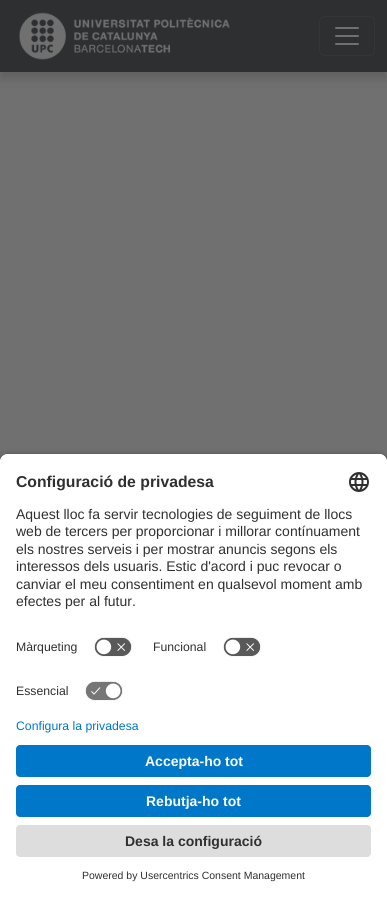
import math
import cairo

surface = cairo.ImageSurface(cairo.FORMAT_RGB24, 387, 897)
ctx = cairo.Context(surface)
options = cairo.FontOptions()
options.set_hint_metrics(cairo.HINT_METRICS_OFF)
options.set_hint_style(cairo.HINT_STYLE_NONE)
ctx.set_font_options(options)
ctx.set_miter_limit(4)


def set_color(code):
    ctx.set_source_rgb(*(v / 255 for v in bytes.fromhex(code[-6:])))


def draw_text(x, y, s, family, size, color, bold=False, italic=False):
    ctx.select_font_face(family, cairo.FONT_SLANT_ITALIC if italic else cairo.FONT_SLANT_NORMAL, cairo.FONT_WEIGHT_BOLD if bold else cairo.FONT_WEIGHT_NORMAL)
    ctx.set_font_size(size)
    set_color(color)
    ctx.move_to(x, y)
    ctx.show_text(s)


def fill_rect(x, y, w, h, color):
    set_color(color)
    ctx.rectangle(x, y, w, h)
    ctx.fill()


def rounded_rect(x, y, w, h, r):
    ctx.new_sub_path()
    for i, (u, v) in enumerate([(x + w - r, y + h - r), (x + r, y + h - r), (x + r, y + r), (x + w - r, y + r)]):
        ctx.arc(u, v, r, i * math.pi / 2, (i + 1) * math.pi / 2)
    ctx.close_path()


def draw_shadow(x, y, w, h, r, blur, alpha):
    ctx.push_group_with_content(cairo.CONTENT_ALPHA)
    ctx.set_operator(cairo.OPERATOR_SOURCE)
    for i in range(15, -16, -2):
        e = blur * i / 6
        if min(w, h) + 2 * e > 0:
            ctx.set_source_rgba(0, 0, 0, alpha * math.erfc((i - 1) / 8.5) / 2)
            rounded_rect(x - e, y - e, w + 2 * e, h + 2 * e, max(0, min(r + e + blur * .6, min(w, h) / 2 + e)))
            ctx.fill()
    ctx.mask(ctx.pop_group())


def draw_image(path, x, y, w, h):
    ctx.save()
    ctx.set_source_surface(cairo.ImageSurface.create_from_png(path), x, y)
    ctx.rectangle(x, y, w, h)
    ctx.fill()
    ctx.restore()


set_color("#707070")
ctx.paint()
set_color("#242424")
draw_shadow(0, 7, 387, 72, 0, 4, 0.2)
fill_rect(0, 0, 387, 72, "#2e2f30")
draw_image("assets/img1.png", 19, 12, 211, 48)
rounded_rect(319.5, 16.5, 55, 39, 5.5)
set_color("#343536")
ctx.set_line_width(1)
ctx.stroke()
draw_image("assets/img2.png", 335, 27, 24, 18)
set_color("#000000")
draw_shadow(0, 457, 387, 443, 8, 3.5, 0.8)
set_color("#ffffff")
ctx.new_path()
ctx.move_to(8, 454)
ctx.line_to(379, 454)
ctx.curve_to(383.5, 454, 387, 457.5, 387, 462)
ctx.line_to(387, 719)
ctx.line_to(0, 719)
ctx.line_to(0, 462)
ctx.curve_to(0, 457.5, 3.5, 454, 8, 454)
ctx.close_path()
ctx.fill()
ctx.new_path()
ctx.move_to(8, 454)
ctx.line_to(379, 454)
ctx.curve_to(383.5, 454, 387, 457.5, 387, 462)
ctx.line_to(387, 631)
ctx.line_to(0, 631)
ctx.line_to(0, 462)
ctx.curve_to(0, 457.5, 3.5, 454, 8, 454)
ctx.close_path()
ctx.fill()
draw_text(16, 487, "Configuració de privadesa", "Liberation Sans", 15.75, "#303030", bold=True)
draw_image("assets/img3.png", 349, 472, 20, 20)
draw_text(16, 519, "Aquest lloc fa servir tecnologies de seguiment de llocs", "Liberation Sans", 14, "#303030")
draw_text(16, 536, "web de tercers per proporcionar i millorar contínuament", "Liberation Sans", 14, "#303030")
draw_text(16, 554, "els nostres serveis i per mostrar anuncis segons els", "Liberation Sans", 14, "#303030")
draw_text(16, 571, "interessos dels usuaris. Estic d'acord i puc revocar o", "Liberation Sans", 14, "#303030")
draw_text(16, 589, "canviar el meu consentiment en qualsevol moment amb", "Liberation Sans", 14, "#303030")
draw_text(16, 606, "efectes per al futur.", "Liberation Sans", 14, "#303030")
draw_text(16, 651, "Màrqueting", "Liberation Sans", 12.25, "#303030")
draw_image("assets/img4.png", 94, 637, 38, 20)
draw_text(153, 651, "Funcional", "Liberation Sans", 12.25, "#303030")
draw_image("assets/img4.png", 223, 637, 38, 20)
draw_text(16, 695, "Essencial", "Liberation Sans", 12.25, "#303030")
draw_image("assets/img5.png", 85, 681, 38, 20)
fill_rect(0, 719, 387, 178, "#ffffff")
draw_text(16, 730, "Configura la privadesa", "Liberation Sans", 12.25, "#0077c8")
rounded_rect(16, 745, 355, 32, 4)
ctx.fill()
draw_text(145, 766, "Accepta-ho tot", "Liberation Sans", 14, "#fafafa", bold=True)
set_color("#0077c8")
rounded_rect(16, 785, 355, 32, 4)
ctx.fill()
draw_text(146, 806, "Rebutja-ho tot", "Liberation Sans", 14, "#fafafa", bold=True)
set_color("#dddddd")
rounded_rect(16, 825, 355, 32, 4)
ctx.fill()
draw_text(125, 846, "Desa la configuració", "Liberation Sans", 14, "#303030", bold=True)
draw_text(82, 879, "Powered by Usercentrics Consent Management", "Liberation Sans", 10.5, "#303030")
surface.write_to_png("output.png")
